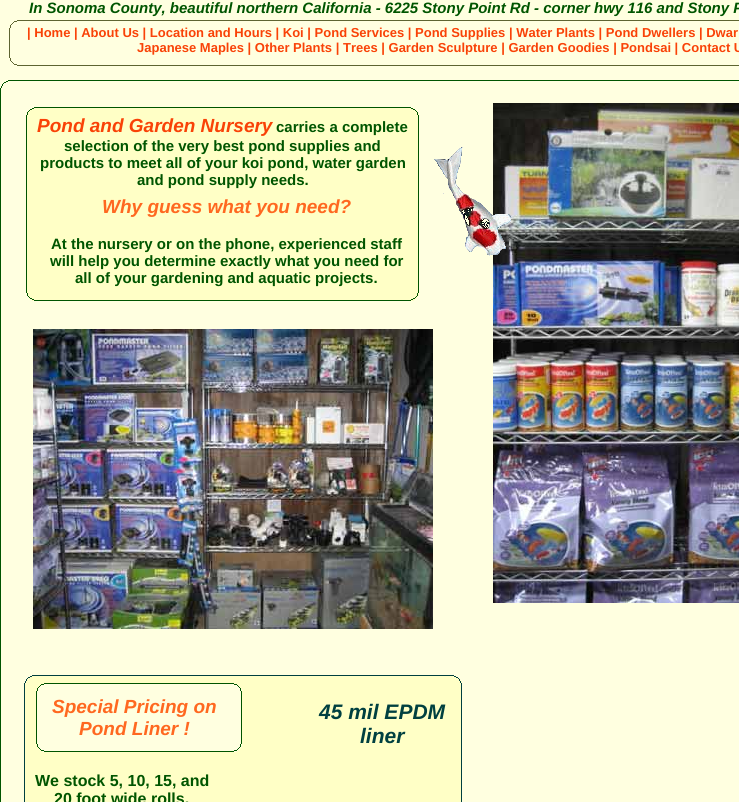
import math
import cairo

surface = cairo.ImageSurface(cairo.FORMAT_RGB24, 739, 802)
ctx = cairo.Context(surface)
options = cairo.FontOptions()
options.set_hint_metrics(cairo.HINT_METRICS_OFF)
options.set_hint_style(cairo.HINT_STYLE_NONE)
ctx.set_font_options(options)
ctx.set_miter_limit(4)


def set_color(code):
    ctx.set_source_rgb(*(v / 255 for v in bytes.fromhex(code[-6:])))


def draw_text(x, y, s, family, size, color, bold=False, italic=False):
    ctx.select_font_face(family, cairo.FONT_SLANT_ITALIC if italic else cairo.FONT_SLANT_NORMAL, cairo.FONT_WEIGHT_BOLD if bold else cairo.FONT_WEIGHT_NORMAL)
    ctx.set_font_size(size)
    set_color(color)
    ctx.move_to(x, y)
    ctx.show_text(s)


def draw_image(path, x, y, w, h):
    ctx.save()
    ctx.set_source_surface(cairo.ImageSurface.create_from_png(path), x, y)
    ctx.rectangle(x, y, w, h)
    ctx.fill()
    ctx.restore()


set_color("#ffffe0")
ctx.paint()
draw_text(29, 13, "In Sonoma County, beautiful northern California - 6225 Stony Point Rd - corner hwy 116 and Stony P", "Liberation Sans", 15, "#005500", bold=True, italic=True)
draw_image("assets/img1.png", 9, 20, 730, 46)
draw_text(27, 37, "| Home | About Us | Location and Hours | Koi | Pond Services | Pond Supplies | Water Plants | Pond Dwellers | Dwar", "Liberation Sans", 13, "#f94207", bold=True)
draw_text(137, 52, "Japanese Maples | Other Plants | Trees | Garden Sculpture | Garden Goodies | Pondsai | Contact U", "Liberation Sans", 13, "#f94207", bold=True)
draw_image("assets/img2.png", 0, 80, 739, 722)
draw_image("assets/img3.png", 26, 107, 393, 194)
draw_image("assets/img4.png", 493, 103, 246, 500)
draw_text(37, 132, "Pond and Garden Nursery", "Liberation Sans", 19, "#f94207", bold=True, italic=True)
draw_text(276, 132, "carries a complete", "Liberation Sans", 15, "#005500", bold=True)
draw_text(64, 151, "selection of the very best pond supplies and", "Liberation Sans", 15, "#005500", bold=True)
draw_text(40, 168, "products to meet all of your koi pond, water garden", "Liberation Sans", 15, "#005500", bold=True)
draw_text(137, 185, "and pond supply needs.", "Liberation Sans", 15, "#005500", bold=True)
draw_image("assets/img5.png", 434, 147, 78, 109)
draw_text(102, 213, "Why guess what you need?", "Liberation Sans", 19, "#ff6820", bold=True, italic=True)
draw_text(51, 249, "At the nursery or on the phone, experienced staff", "Liberation Sans", 15, "#005500", bold=True)
draw_text(50, 266, "will help you determine exactly what you need for", "Liberation Sans", 15, "#005500", bold=True)
draw_text(75, 283, "all of your gardening and aquatic projects.", "Liberation Sans", 15, "#005500", bold=True)
draw_image("assets/img6.png", 33, 329, 400, 300)
draw_image("assets/img7.png", 24, 675, 438, 127)
draw_text(319, 719, "45 mil EPDM", "Liberation Sans", 21, "#004040", bold=True, italic=True)
draw_text(360, 743, "liner", "Liberation Sans", 21, "#004040", bold=True, italic=True)
draw_text(35, 786, "We stock 5, 10, 15, and", "Liberation Sans", 16, "#005500", bold=True)
draw_text(54, 804, "20 foot wide rolls,", "Liberation Sans", 16, "#005500", bold=True)
draw_image("assets/img8.png", 36, 683, 206, 69)
draw_text(52, 713, "Special Pricing on", "Liberation Sans", 19, "#ff6820", bold=True, italic=True)
draw_text(79, 735, "Pond Liner !", "Liberation Sans", 19, "#ff6820", bold=True, italic=True)
surface.write_to_png("output.png")
